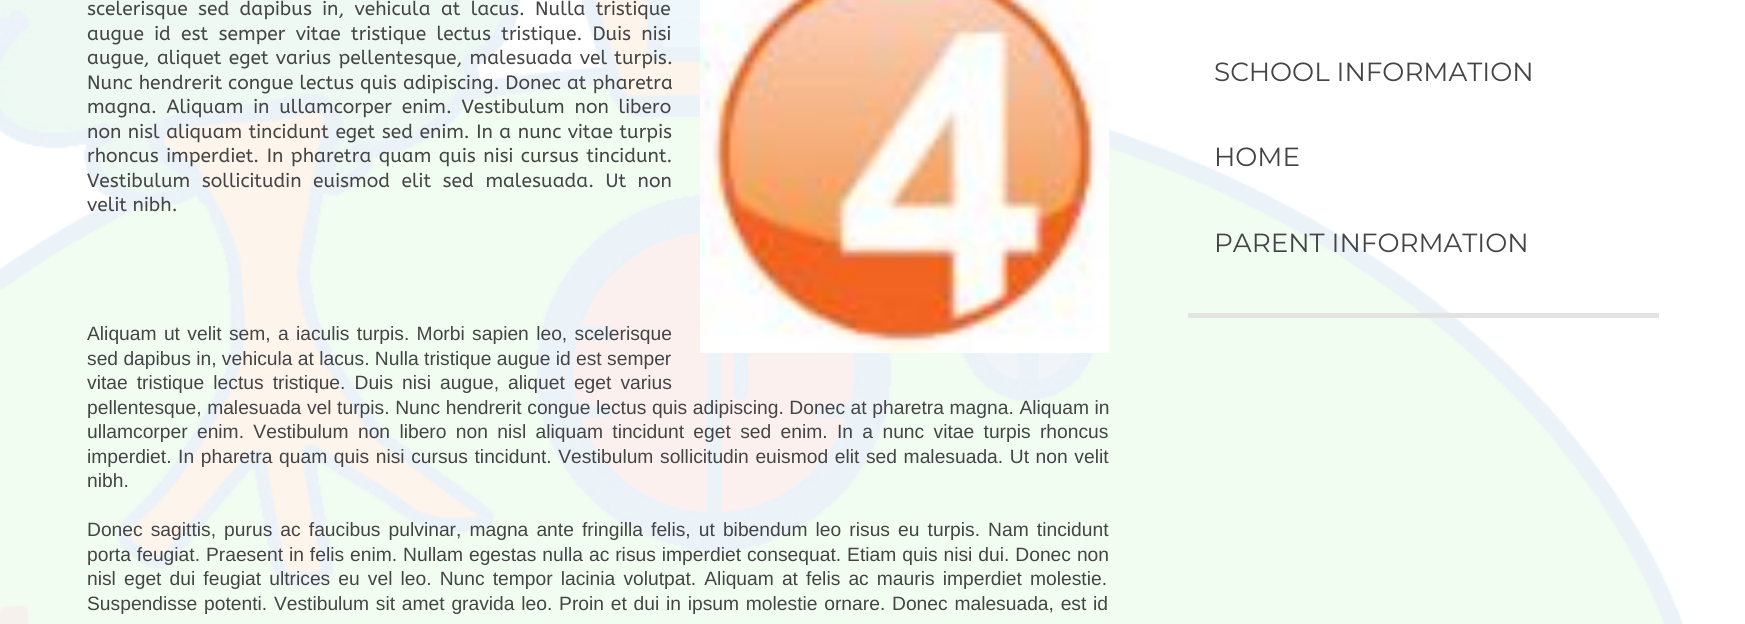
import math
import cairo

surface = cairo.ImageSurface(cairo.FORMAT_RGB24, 1745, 624)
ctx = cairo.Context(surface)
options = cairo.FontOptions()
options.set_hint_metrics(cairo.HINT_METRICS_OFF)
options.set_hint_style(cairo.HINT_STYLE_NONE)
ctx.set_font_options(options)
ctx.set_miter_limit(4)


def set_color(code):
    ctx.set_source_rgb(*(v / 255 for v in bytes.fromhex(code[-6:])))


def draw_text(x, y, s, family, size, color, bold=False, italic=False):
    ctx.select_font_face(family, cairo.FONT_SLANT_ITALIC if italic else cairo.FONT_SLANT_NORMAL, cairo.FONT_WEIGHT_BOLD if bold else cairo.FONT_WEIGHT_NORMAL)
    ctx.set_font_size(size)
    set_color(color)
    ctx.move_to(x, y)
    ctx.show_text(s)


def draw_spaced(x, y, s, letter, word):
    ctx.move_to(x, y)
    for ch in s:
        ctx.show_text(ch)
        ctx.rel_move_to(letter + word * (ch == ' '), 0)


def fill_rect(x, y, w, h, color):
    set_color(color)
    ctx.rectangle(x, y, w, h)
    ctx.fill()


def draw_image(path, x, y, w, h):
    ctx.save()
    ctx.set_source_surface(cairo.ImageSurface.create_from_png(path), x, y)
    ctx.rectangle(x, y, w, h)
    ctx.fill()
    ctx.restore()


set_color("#ffffff")
ctx.paint()
draw_image("assets/img1.png", 0, 0, 1684, 624)
ctx.select_font_face("ABeeZee")
ctx.set_font_size(19.25)
set_color("#444444")
draw_spaced(87, 15, "scelerisque sed dapibus in, vehicula at lacus. Nulla tristique", 0, 4.5)
draw_spaced(87, 40, "augue id est semper vitae tristique lectus tristique. Duis nisi", 0, 4.5)
draw_spaced(87, 64, "augue, aliquet eget varius pellentesque, malesuada vel turpis.", 0, 1.5)
draw_spaced(87, 89, "Nunc hendrerit congue lectus quis adipiscing. Donec at pharetra", 0, 0.25)
draw_spaced(87, 113, "magna. Aliquam in ullamcorper enim. Vestibulum non libero", 0, 4)
draw_spaced(87, 138, "non nisl aliquam tincidunt eget sed enim. In a nunc vitae turpis", 0, 0.75)
draw_spaced(87, 162, "rhoncus imperdiet. In pharetra quam quis nisi cursus tincidunt.", 0, 1.75)
draw_spaced(87, 187, "Vestibulum sollicitudin euismod elit sed malesuada. Ut non", 0, 5.75)
draw_text(87, 211, "velit nibh.", "ABeeZee", 19.25, "#444444")
draw_image("assets/img2.png", 700, 0, 410, 353)
ctx.select_font_face("Liberation Sans")
draw_spaced(87, 340, "Aliquam ut velit sem, a iaculis turpis. Morbi sapien leo, scelerisque", 0, 2)
draw_text(87, 365, "sed dapibus in, vehicula at lacus. Nulla tristique augue id est semper", "Liberation Sans", 19.25, "#444444")
draw_spaced(87, 389, "vitae tristique lectus tristique. Duis nisi augue, aliquet eget varius", 0, 3.75)
draw_spaced(87, 414, "pellentesque, malesuada vel turpis. Nunc hendrerit congue lectus quis adipiscing. Donec at pharetra magna. Aliquam in", 0, 0.25)
draw_spaced(87, 438, "ullamcorper enim. Vestibulum non libero non nisl aliquam tincidunt eget sed enim. In a nunc vitae turpis rhoncus", 0, 4)
draw_spaced(87, 463, "imperdiet. In pharetra quam quis nisi cursus tincidunt. Vestibulum sollicitudin euismod elit sed malesuada. Ut non velit", 0, 1.25)
draw_text(87, 487, "nibh.", "Liberation Sans", 19.25, "#444444")
draw_spaced(87, 536, "Donec sagittis, purus ac faucibus pulvinar, magna ante fringilla felis, ut bibendum leo risus eu turpis. Nam tincidunt", 0, 2.75)
draw_spaced(87, 561, "porta feugiat. Praesent in felis enim. Nullam egestas nulla ac risus imperdiet consequat. Etiam quis nisi dui. Donec non", 0, 0.6)
draw_spaced(87, 585, "nisl eget dui feugiat ultrices eu vel leo. Nunc tempor lacinia volutpat. Aliquam at felis ac mauris imperdiet molestie.", 0, 2.75)
draw_spaced(87, 610, "Suspendisse potenti. Vestibulum sit amet gravida leo. Proin et dui in ipsum molestie ornare. Donec malesuada, est id", 0, 1.4)
fill_rect(1188, 313, 471, 5, "#e3e3e3")
draw_text(1214, 81, "SCHOOL INFORMATION", "Montserrat", 26.25, "#444444")
draw_text(1214, 166, "HOME", "Montserrat", 26.25, "#444444")
draw_text(1214, 252, "PARENT INFORMATION", "Montserrat", 26.25, "#444444")
surface.write_to_png("output.png")
